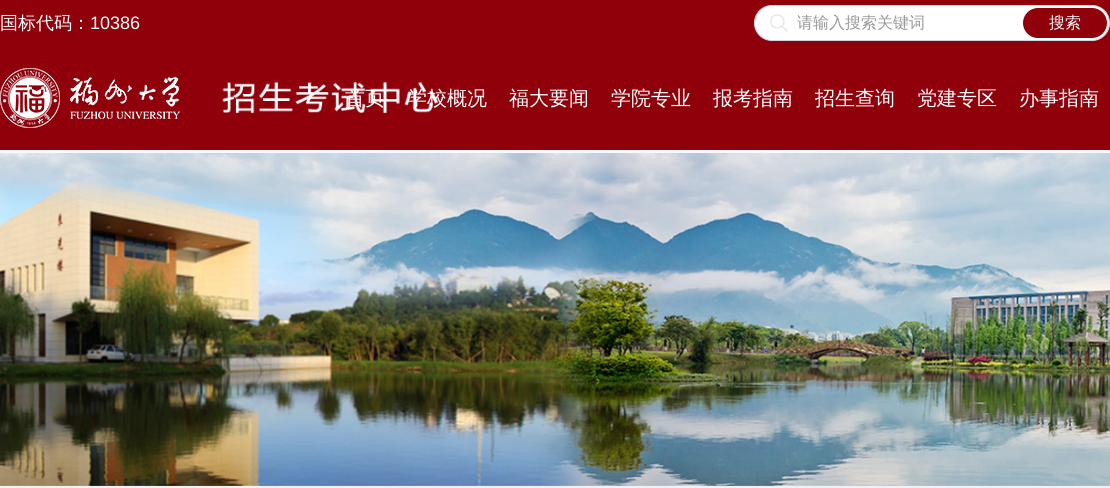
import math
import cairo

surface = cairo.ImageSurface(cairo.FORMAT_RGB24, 1110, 488)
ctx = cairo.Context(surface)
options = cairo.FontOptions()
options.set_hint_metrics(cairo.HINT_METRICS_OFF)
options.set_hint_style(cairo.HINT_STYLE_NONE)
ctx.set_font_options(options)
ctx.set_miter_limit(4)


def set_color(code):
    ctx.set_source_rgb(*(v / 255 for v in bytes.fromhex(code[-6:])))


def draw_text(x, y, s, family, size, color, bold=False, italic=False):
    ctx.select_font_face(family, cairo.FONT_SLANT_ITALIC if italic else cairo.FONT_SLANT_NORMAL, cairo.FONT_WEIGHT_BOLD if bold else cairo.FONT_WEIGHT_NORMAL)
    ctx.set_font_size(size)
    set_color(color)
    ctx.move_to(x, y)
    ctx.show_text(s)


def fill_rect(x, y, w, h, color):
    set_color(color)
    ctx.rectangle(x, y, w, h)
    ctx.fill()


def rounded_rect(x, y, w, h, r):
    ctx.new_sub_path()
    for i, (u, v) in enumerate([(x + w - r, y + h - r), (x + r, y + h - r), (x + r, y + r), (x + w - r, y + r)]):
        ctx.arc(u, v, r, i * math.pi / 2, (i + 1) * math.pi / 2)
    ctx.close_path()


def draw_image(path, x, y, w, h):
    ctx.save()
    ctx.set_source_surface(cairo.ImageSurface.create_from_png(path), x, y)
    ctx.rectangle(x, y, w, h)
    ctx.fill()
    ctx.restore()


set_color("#ffffff")
ctx.paint()
fill_rect(0, 0, 1110, 150, "#8f000b")
draw_text(0, 29, "国标代码：", "WenQuanYi Zen Hei Medium", 18, "#ffffff")
draw_text(90, 29, "10386", "Liberation Sans", 18, "#ffffff")
rounded_rect(754.5, 5.5, 355, 35, 17.5)
ctx.fill_preserve()
set_color("#d3d4dd")
ctx.set_line_width(1)
ctx.stroke()
draw_image("assets/img1.png", 770, 14, 18, 18)
draw_text(797, 28, "请输入搜索关键词", "WenQuanYi Zen Hei Medium", 16, "#999999")
set_color("#8f000b")
rounded_rect(1023, 8, 84, 30, 15)
ctx.fill()
draw_text(1049, 28, "搜索", "WenQuanYi Zen Hei Medium", 16, "#ffffff")
fill_rect(0, 150, 1110, 3, "#f7f9ff")
draw_image("assets/img2.png", 0, 68, 180, 60)
draw_image("assets/img3.png", 222, 81, 217, 33)
draw_text(345, 105, "首页", "WenQuanYi Zen Hei Medium", 20, "#ffffff")
draw_text(407, 105, "学校概况", "WenQuanYi Zen Hei Medium", 20, "#ffffff")
draw_text(509, 105, "福大要闻", "WenQuanYi Zen Hei Medium", 20, "#ffffff")
draw_text(611, 105, "学院专业", "WenQuanYi Zen Hei Medium", 20, "#ffffff")
draw_text(713, 105, "报考指南", "WenQuanYi Zen Hei Medium", 20, "#ffffff")
draw_text(815, 105, "招生查询", "WenQuanYi Zen Hei Medium", 20, "#ffffff")
draw_text(917, 105, "党建专区", "WenQuanYi Zen Hei Medium", 20, "#ffffff")
draw_text(1019, 105, "办事指南", "WenQuanYi Zen Hei Medium", 20, "#ffffff")
draw_image("assets/img4.png", 0, 153, 1110, 333)
fill_rect(0, 486, 1110, 2, "#eff1f7")
surface.write_to_png("output.png")
